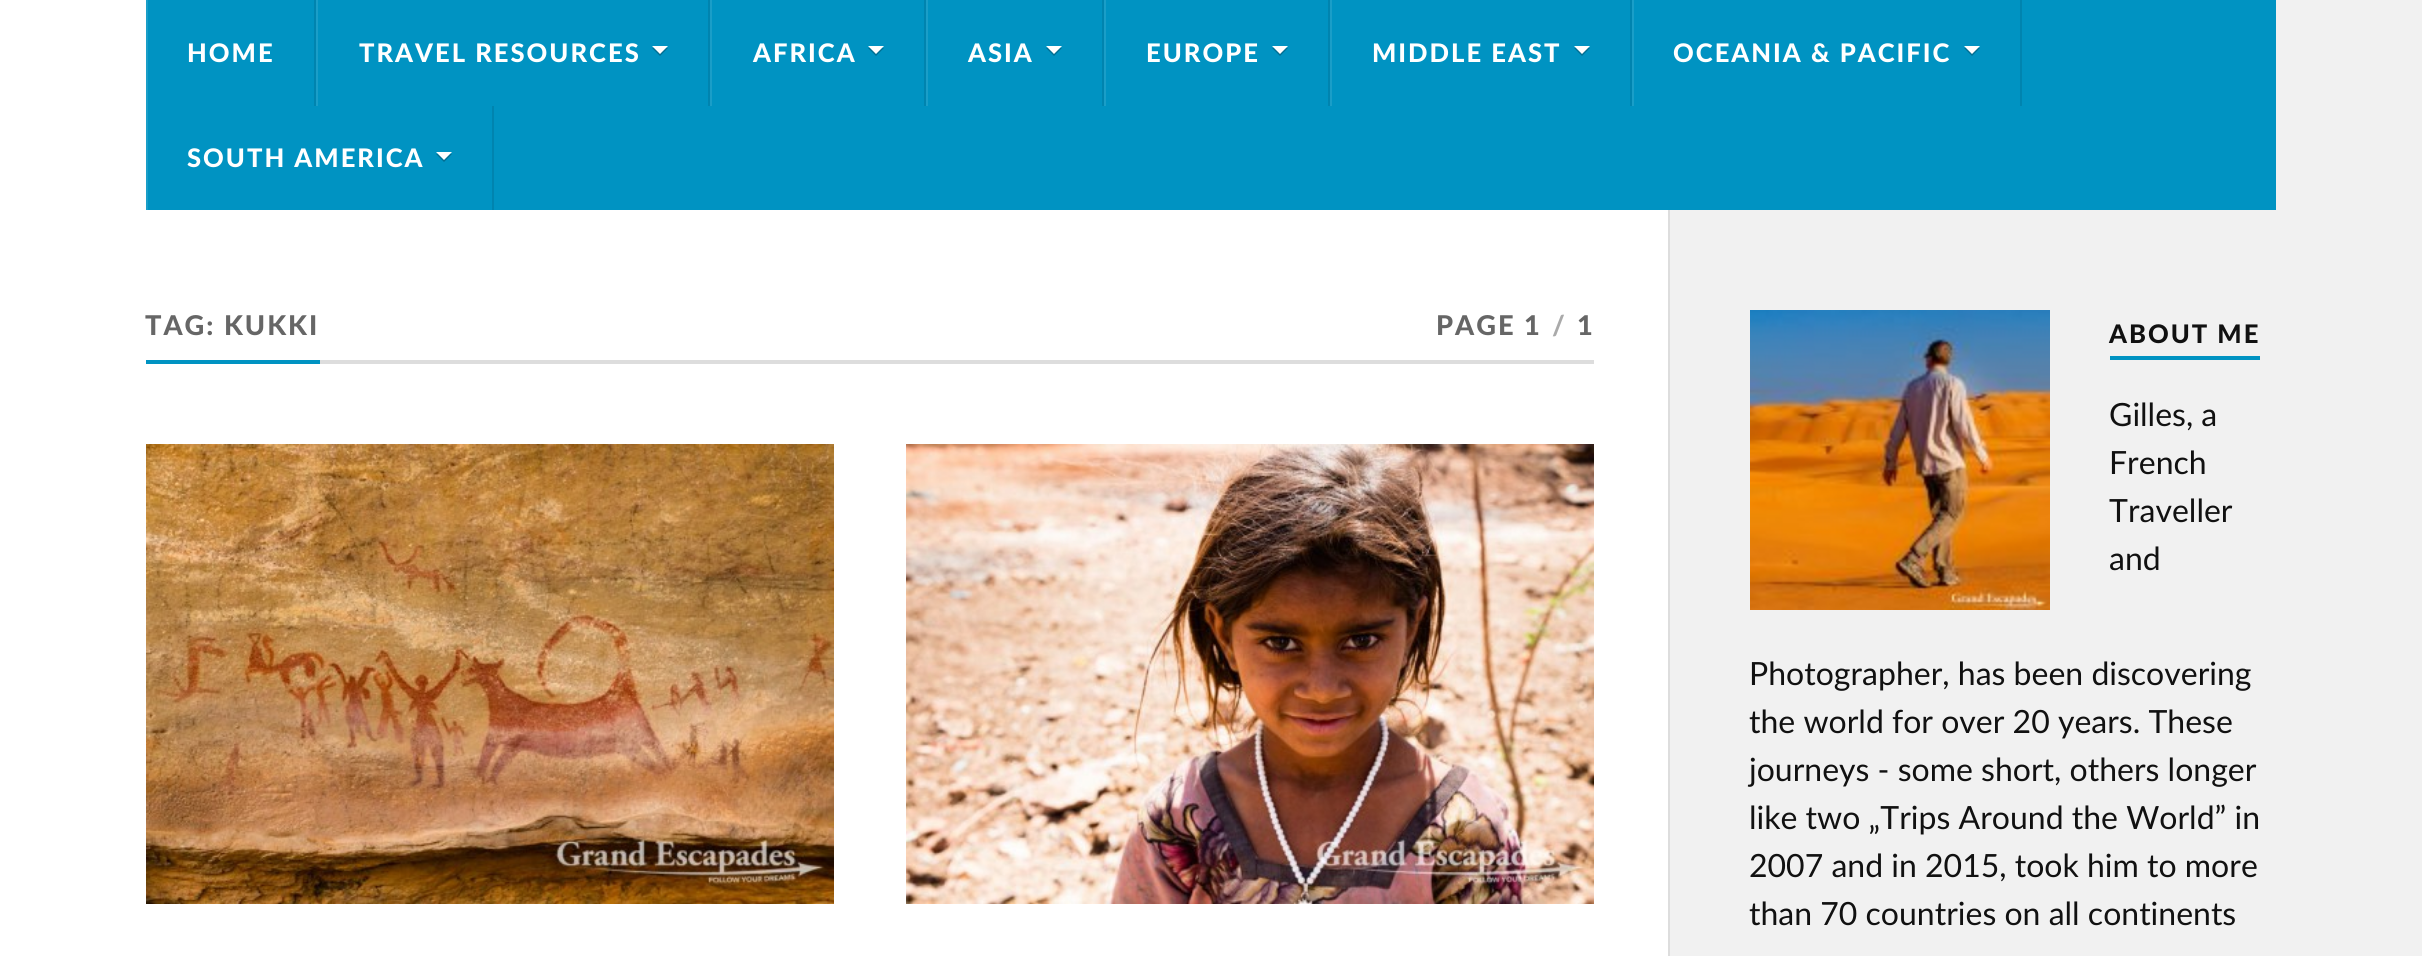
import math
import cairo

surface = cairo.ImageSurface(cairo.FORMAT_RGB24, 2422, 956)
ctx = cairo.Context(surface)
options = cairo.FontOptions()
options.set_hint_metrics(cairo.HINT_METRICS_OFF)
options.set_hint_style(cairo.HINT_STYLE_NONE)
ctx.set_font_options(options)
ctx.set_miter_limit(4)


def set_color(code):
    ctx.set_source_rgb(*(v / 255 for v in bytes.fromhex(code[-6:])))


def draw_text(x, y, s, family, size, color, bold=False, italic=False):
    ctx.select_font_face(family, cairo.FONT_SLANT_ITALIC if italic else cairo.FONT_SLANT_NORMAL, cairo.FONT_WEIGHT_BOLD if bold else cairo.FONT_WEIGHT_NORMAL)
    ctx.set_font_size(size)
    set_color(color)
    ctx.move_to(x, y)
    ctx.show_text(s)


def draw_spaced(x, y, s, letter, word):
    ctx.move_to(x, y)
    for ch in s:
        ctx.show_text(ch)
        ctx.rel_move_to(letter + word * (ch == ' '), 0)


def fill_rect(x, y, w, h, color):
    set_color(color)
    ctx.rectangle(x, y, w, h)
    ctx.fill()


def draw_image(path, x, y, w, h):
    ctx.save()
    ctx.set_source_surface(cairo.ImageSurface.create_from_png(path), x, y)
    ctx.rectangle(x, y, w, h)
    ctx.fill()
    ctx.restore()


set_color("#f1f1f1")
ctx.paint()
fill_rect(0, 0, 146, 210, "#ffffff")
fill_rect(148, 0, 2128, 210, "#0093c2")
fill_rect(314, 0, 2, 106, "#0084af")
fill_rect(146, 0, 2, 210, "#1a9ec8")
ctx.select_font_face("Lato Black")
ctx.set_font_size(25.6)
set_color("#ffffff")
draw_spaced(187, 62, "HOME", 2, 0)
fill_rect(708, 0, 2, 106, "#0084af")
fill_rect(316, 0, 2, 106, "#1a9ec8")
set_color("#ffffff")
draw_spaced(359, 62, "TRAVEL RESOURCES", 2, 0)
set_color("#006e92")
ctx.new_path()
ctx.move_to(652, 48)
ctx.line_to(668, 48)
ctx.line_to(660, 56)
ctx.close_path()
ctx.fill()
set_color("#ffffff")
ctx.new_path()
ctx.move_to(652, 46)
ctx.line_to(668, 46)
ctx.line_to(660, 54)
ctx.close_path()
ctx.fill()
fill_rect(924, 0, 2, 106, "#0084af")
fill_rect(710, 0, 2, 106, "#1a9ec8")
set_color("#ffffff")
draw_spaced(753, 62, "AFRICA", 2, 0)
set_color("#006e92")
ctx.new_path()
ctx.move_to(868, 48)
ctx.line_to(884, 48)
ctx.line_to(876, 56)
ctx.close_path()
ctx.fill()
set_color("#ffffff")
ctx.new_path()
ctx.move_to(868, 46)
ctx.line_to(884, 46)
ctx.line_to(876, 54)
ctx.close_path()
ctx.fill()
fill_rect(1102, 0, 2, 106, "#0084af")
fill_rect(926, 0, 2, 106, "#1a9ec8")
set_color("#ffffff")
draw_spaced(968, 62, "ASIA", 2, 0)
set_color("#006e92")
ctx.new_path()
ctx.move_to(1046, 48)
ctx.line_to(1062, 48)
ctx.line_to(1054, 56)
ctx.close_path()
ctx.fill()
set_color("#ffffff")
ctx.new_path()
ctx.move_to(1046, 46)
ctx.line_to(1062, 46)
ctx.line_to(1054, 54)
ctx.close_path()
ctx.fill()
fill_rect(1328, 0, 2, 106, "#0084af")
fill_rect(1104, 0, 2, 106, "#1a9ec8")
set_color("#ffffff")
draw_spaced(1146, 62, "EUROPE", 2, 0)
set_color("#006e92")
ctx.new_path()
ctx.move_to(1272, 48)
ctx.line_to(1288, 48)
ctx.line_to(1280, 56)
ctx.close_path()
ctx.fill()
set_color("#ffffff")
ctx.new_path()
ctx.move_to(1272, 46)
ctx.line_to(1288, 46)
ctx.line_to(1280, 54)
ctx.close_path()
ctx.fill()
fill_rect(1630, 0, 2, 106, "#0084af")
fill_rect(1330, 0, 2, 106, "#1a9ec8")
set_color("#ffffff")
draw_spaced(1372, 62, "MIDDLE EAST", 2, 0)
set_color("#006e92")
ctx.new_path()
ctx.move_to(1574, 48)
ctx.line_to(1590, 48)
ctx.line_to(1582, 56)
ctx.close_path()
ctx.fill()
set_color("#ffffff")
ctx.new_path()
ctx.move_to(1574, 46)
ctx.line_to(1590, 46)
ctx.line_to(1582, 54)
ctx.close_path()
ctx.fill()
fill_rect(2020, 0, 2, 106, "#0084af")
fill_rect(1632, 0, 2, 106, "#1a9ec8")
set_color("#ffffff")
draw_spaced(1673, 62, "OCEANIA & PACIFIC", 2, 0)
set_color("#006e92")
ctx.new_path()
ctx.move_to(1964, 48)
ctx.line_to(1980, 48)
ctx.line_to(1972, 56)
ctx.close_path()
ctx.fill()
set_color("#ffffff")
ctx.new_path()
ctx.move_to(1964, 46)
ctx.line_to(1980, 46)
ctx.line_to(1972, 54)
ctx.close_path()
ctx.fill()
fill_rect(492, 106, 2, 104, "#0084af")
set_color("#ffffff")
draw_spaced(187, 167, "SOUTH AMERICA", 2, 0)
set_color("#006e92")
ctx.new_path()
ctx.move_to(436, 154)
ctx.line_to(452, 154)
ctx.line_to(444, 162)
ctx.close_path()
ctx.fill()
set_color("#ffffff")
ctx.new_path()
ctx.move_to(436, 152)
ctx.line_to(452, 152)
ctx.line_to(444, 160)
ctx.close_path()
ctx.fill()
fill_rect(0, 210, 1668, 746, "#ffffff")
fill_rect(320, 360, 1274, 4, "#dddddd")
fill_rect(146, 360, 174, 4, "#0093c2")
ctx.set_font_size(27.25)
set_color("#666666")
draw_spaced(145, 335, "TAG: KUKKI", 2, 0)
draw_spaced(1436, 335, "PAGE 1", 2, 0)
set_color("#aaaaaa")
draw_spaced(1552, 335, "/", 2, 0)
set_color("#666666")
draw_spaced(1577, 335, "1", 2, 0)
draw_image("assets/img1.png", 146, 444, 688, 460)
draw_image("assets/img2.png", 906, 444, 688, 460)
fill_rect(1668, 210, 2, 746, "#dddddd")
draw_image("assets/img3.png", 1750, 310, 300, 300)
fill_rect(2110, 356, 150, 4, "#0093c2")
ctx.set_font_size(25.6)
set_color("#111111")
draw_spaced(2109, 343, "ABOUT ME", 2, 0)
draw_text(2109, 426, "Gilles, a", "Lato", 32, "#111111")
draw_text(2109, 474, "French", "Lato", 32, "#111111")
draw_text(2109, 522, "Traveller", "Lato", 32, "#111111")
draw_text(2109, 570, "and", "Lato", 32, "#111111")
draw_text(1749, 685, "Photographer, has been discovering", "Lato", 32, "#111111")
draw_text(1749, 733, "the world for over 20 years. These", "Lato", 32, "#111111")
draw_text(1749, 781, "journeys - some short, others longer", "Lato", 32, "#111111")
draw_text(1749, 829, "like two „Trips Around the World” in", "Lato", 32, "#111111")
draw_text(1749, 877, "2007 and in 2015, took him to more", "Lato", 32, "#111111")
draw_text(1749, 925, "than 70 countries on all continents", "Lato", 32, "#111111")
surface.write_to_png("output.png")
